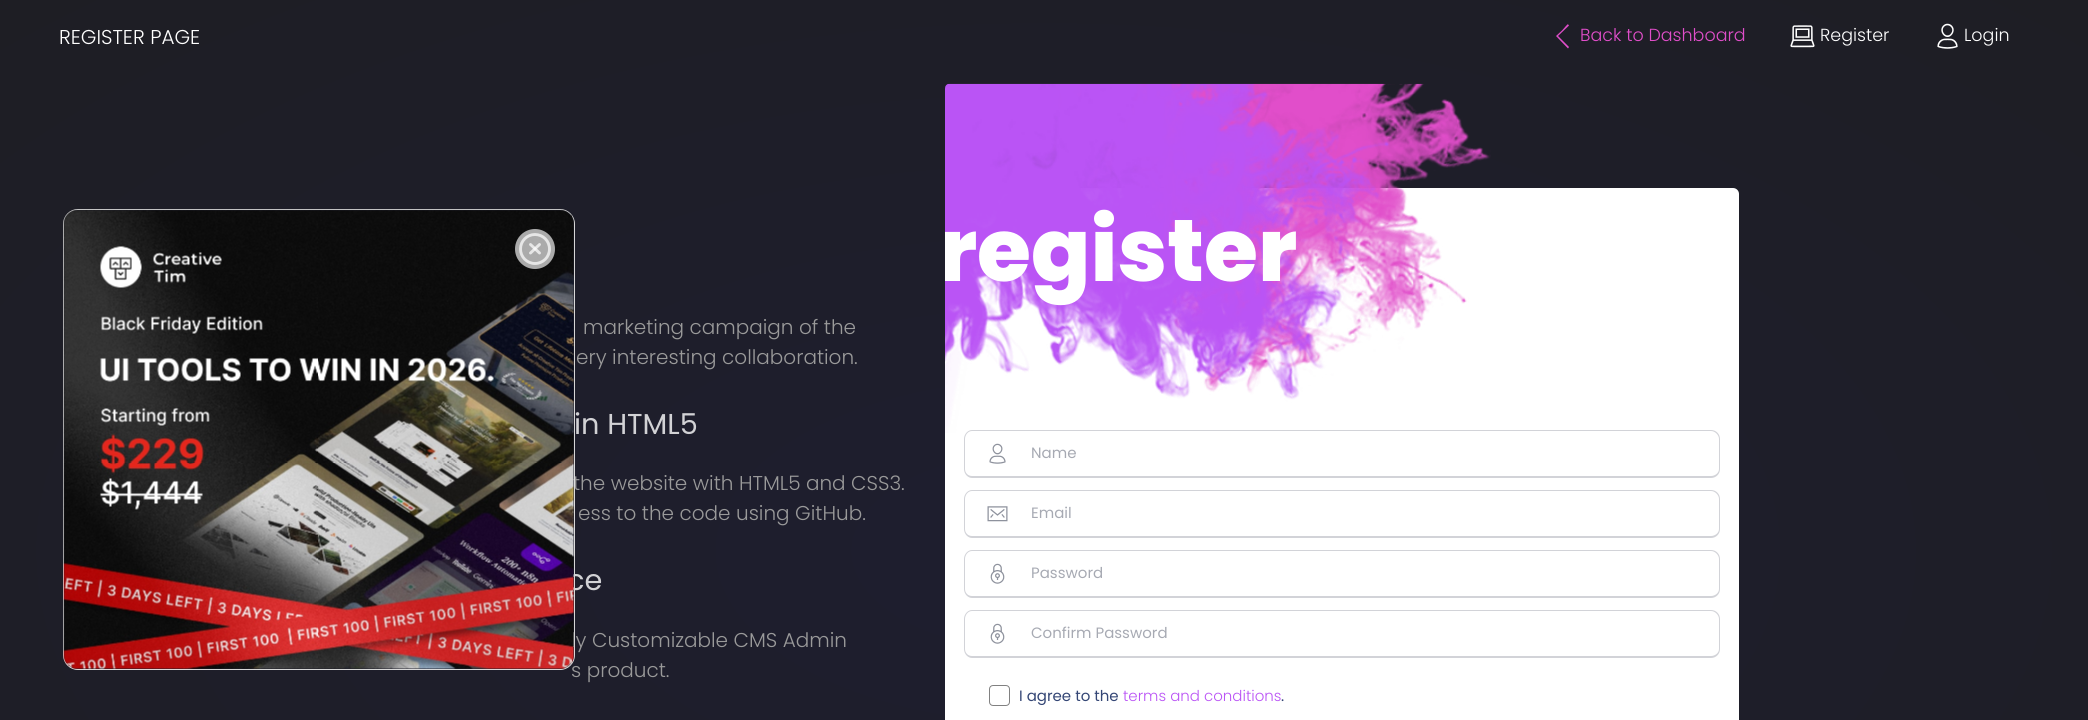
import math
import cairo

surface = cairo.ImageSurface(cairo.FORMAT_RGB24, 2088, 720)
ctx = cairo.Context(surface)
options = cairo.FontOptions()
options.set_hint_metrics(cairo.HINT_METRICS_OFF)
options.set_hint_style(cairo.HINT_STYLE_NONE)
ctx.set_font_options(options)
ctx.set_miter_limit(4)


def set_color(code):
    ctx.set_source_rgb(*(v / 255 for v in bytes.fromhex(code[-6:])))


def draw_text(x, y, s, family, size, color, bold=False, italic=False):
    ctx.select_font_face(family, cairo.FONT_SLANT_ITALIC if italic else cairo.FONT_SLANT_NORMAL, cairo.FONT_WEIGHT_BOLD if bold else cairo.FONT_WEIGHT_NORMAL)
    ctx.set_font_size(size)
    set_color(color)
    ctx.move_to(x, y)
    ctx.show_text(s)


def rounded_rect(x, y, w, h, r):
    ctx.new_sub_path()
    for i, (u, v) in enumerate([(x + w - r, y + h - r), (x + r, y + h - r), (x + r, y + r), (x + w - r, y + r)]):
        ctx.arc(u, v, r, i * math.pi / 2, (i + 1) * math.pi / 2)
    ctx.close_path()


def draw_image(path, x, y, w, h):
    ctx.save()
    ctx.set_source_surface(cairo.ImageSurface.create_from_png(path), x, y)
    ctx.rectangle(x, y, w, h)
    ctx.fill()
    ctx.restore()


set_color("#ffffff")
ctx.paint()
gradient = cairo.RadialGradient(0, 0, 0, 0, 0, 1)
gradient.set_matrix(cairo.Matrix(1 / 1477, 0, 0, 1 / 780, -1 * 1044 / 1477, -1 * 551 / 780))
gradient.add_color_stop_rgba(0, 0.118, 0.118, 0.184, 1)
gradient.add_color_stop_rgba(1, 0.118, 0.118, 0.141, 1)
ctx.set_source(gradient)
ctx.rectangle(0, 0, 2088, 720)
ctx.fill()
draw_text(59, 44, "REGISTER PAGE", "Poppins Light", 20, "#ffffff")
set_color("#e14eca")
ctx.new_path()
ctx.move_to(1562, 30.5)
ctx.line_to(1556, 36)
ctx.line_to(1568, 48.5)
ctx.line_to(1569, 47)
ctx.line_to(1558, 36)
ctx.line_to(1569, 25.5)
ctx.curve_to(1567.5, 23.5, 1568, 24, 1565.5, 26.5)
ctx.close_path()
ctx.fill()
draw_text(1580, 41, "Back to Dashboard", "Poppins Light", 17.5, "#e14eca")
draw_image("assets/img1.png", 1790, 25, 25, 23)
draw_text(1820, 41, "Register", "Poppins Light", 17.5, "#ffffff")
draw_image("assets/img2.png", 1937, 23, 21, 26)
draw_text(1964, 41, "Login", "Poppins Light", 17.5, "#ffffff")
draw_text(573, 490, "the website with HTML5 and CSS3.", "Poppins Light", 20, "#9a9a9a")
draw_text(567, 590, "ce", "Poppins", 28.75, "#d2d2d5")
draw_text(571, 647, "ly Customizable CMS Admin", "Poppins Light", 20, "#9a9a9a")
draw_text(571, 677, "s product.", "Poppins Light", 20, "#9a9a9a")
rounded_rect(63.5, 209.5, 511, 460, 14.5)
set_color("#dddddd")
ctx.set_line_width(1)
ctx.stroke()
draw_image("assets/img3.png", 63, 209, 512, 461)
ctx.set_source_rgba(0.937, 0.937, 0.937, 0.7)
ctx.arc(535, 249, 20, 0, 2 * math.pi)
ctx.fill()
ctx.arc(535, 249, 14.5, 0, 2 * math.pi)
set_color("#e6e6e6")
ctx.set_line_width(2.9)
ctx.stroke()
ctx.new_path()
ctx.move_to(539.5, 244.5)
ctx.line_to(530.5, 253)
ctx.set_line_cap(cairo.LINE_CAP_ROUND)
ctx.set_line_join(cairo.LINE_JOIN_ROUND)
ctx.stroke()
ctx.new_path()
ctx.move_to(530.5, 244.5)
ctx.line_to(539.5, 253)
ctx.set_source_rgba(1, 1, 1, 0.7)
ctx.stroke()
draw_text(583, 334, "marketing campaign of the", "Poppins Light", 20, "#9a9a9a")
draw_text(576, 364, "ery interesting collaboration.", "Poppins Light", 20, "#9a9a9a")
draw_text(574, 434, "in HTML5", "Poppins", 28.75, "#d2d2d5")
draw_text(578, 520, "ess to the code using GitHub.", "Poppins Light", 20, "#9a9a9a")
set_color("#ffffff")
rounded_rect(945, 188, 794, 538, 6)
ctx.fill()
set_color("#d2d3d8")
ctx.set_fill_rule(cairo.FILL_RULE_EVEN_ODD)
ctx.new_path()
ctx.move_to(972, 430)
ctx.line_to(1009, 430)
ctx.line_to(1009, 478)
ctx.line_to(972, 478)
ctx.curve_to(968, 478, 964, 474, 964, 469)
ctx.line_to(964, 439)
ctx.curve_to(964, 434, 968, 430, 972, 430)
ctx.close_path()
ctx.move_to(972, 431)
ctx.line_to(1009, 431)
ctx.line_to(1009, 476)
ctx.line_to(972, 476)
ctx.curve_to(968, 476, 965, 473, 965, 469)
ctx.line_to(965, 439)
ctx.curve_to(965, 435, 968, 431, 972, 431)
ctx.close_path()
ctx.fill()
ctx.new_path()
ctx.move_to(1009, 430)
ctx.line_to(1711, 430)
ctx.curve_to(1716, 430, 1720, 434, 1720, 439)
ctx.line_to(1720, 469)
ctx.curve_to(1720, 474, 1716, 478, 1711, 478)
ctx.line_to(1009, 478)
ctx.close_path()
ctx.move_to(1009, 431)
ctx.line_to(1711, 431)
ctx.curve_to(1715, 431, 1719, 435, 1719, 439)
ctx.line_to(1719, 469)
ctx.curve_to(1719, 473, 1715, 476, 1711, 476)
ctx.line_to(1009, 476)
ctx.close_path()
ctx.fill()
draw_image("assets/img4.png", 945, 83, 546, 350)
ctx.save()
ctx.set_fill_rule(cairo.FILL_RULE_WINDING)
ctx.new_path()
ctx.move_to(950, 188)
ctx.line_to(1734, 188)
ctx.curve_to(1737, 188, 1739, 190, 1739, 193)
ctx.line_to(1739, 411)
ctx.line_to(945, 411)
ctx.line_to(945, 193)
ctx.curve_to(945, 190, 947, 188, 950, 188)
ctx.close_path()
ctx.clip()
draw_text(938, 281, "register", "Poppins ExtraBold", 87.5, "#ffffff")
ctx.restore()
draw_image("assets/img5.png", 989, 443, 17, 21)
draw_text(1031, 458, "Name", "Poppins", 15, "#a7aab3")
set_color("#d2d3d8")
ctx.new_path()
ctx.move_to(972, 490)
ctx.line_to(1009, 490)
ctx.line_to(1009, 538)
ctx.line_to(972, 538)
ctx.curve_to(968, 538, 964, 534, 964, 529)
ctx.line_to(964, 499)
ctx.curve_to(964, 494, 968, 490, 972, 490)
ctx.close_path()
ctx.move_to(972, 491)
ctx.line_to(1009, 491)
ctx.line_to(1009, 536)
ctx.line_to(972, 536)
ctx.curve_to(968, 536, 965, 533, 965, 529)
ctx.line_to(965, 499)
ctx.curve_to(965, 495, 968, 491, 972, 491)
ctx.close_path()
ctx.fill()
draw_image("assets/img6.png", 987, 506, 21, 16)
ctx.new_path()
ctx.move_to(1009, 490)
ctx.line_to(1711, 490)
ctx.curve_to(1716, 490, 1720, 494, 1720, 499)
ctx.line_to(1720, 529)
ctx.curve_to(1720, 534, 1716, 538, 1711, 538)
ctx.line_to(1009, 538)
ctx.close_path()
ctx.move_to(1009, 491)
ctx.line_to(1711, 491)
ctx.curve_to(1715, 491, 1719, 495, 1719, 499)
ctx.line_to(1719, 529)
ctx.curve_to(1719, 533, 1715, 536, 1711, 536)
ctx.line_to(1009, 536)
ctx.close_path()
ctx.fill()
draw_text(1031, 518, "Email", "Poppins", 15, "#a7aab3")
set_color("#d2d3d8")
ctx.new_path()
ctx.move_to(972, 550)
ctx.line_to(1009, 550)
ctx.line_to(1009, 598)
ctx.line_to(972, 598)
ctx.curve_to(968, 598, 964, 594, 964, 589)
ctx.line_to(964, 559)
ctx.curve_to(964, 554, 968, 550, 972, 550)
ctx.close_path()
ctx.move_to(972, 551)
ctx.line_to(1009, 551)
ctx.line_to(1009, 596)
ctx.line_to(972, 596)
ctx.curve_to(968, 596, 965, 593, 965, 589)
ctx.line_to(965, 559)
ctx.curve_to(965, 555, 968, 551, 972, 551)
ctx.close_path()
ctx.fill()
draw_image("assets/img7.png", 990, 563, 15, 21)
ctx.new_path()
ctx.move_to(1009, 550)
ctx.line_to(1711, 550)
ctx.curve_to(1716, 550, 1720, 554, 1720, 559)
ctx.line_to(1720, 589)
ctx.curve_to(1720, 594, 1716, 598, 1711, 598)
ctx.line_to(1009, 598)
ctx.close_path()
ctx.move_to(1009, 551)
ctx.line_to(1711, 551)
ctx.curve_to(1715, 551, 1719, 555, 1719, 559)
ctx.line_to(1719, 589)
ctx.curve_to(1719, 593, 1715, 596, 1711, 596)
ctx.line_to(1009, 596)
ctx.close_path()
ctx.fill()
draw_text(1031, 578, "Password", "Poppins", 15, "#a7aab3")
set_color("#d2d3d8")
ctx.new_path()
ctx.move_to(972, 610)
ctx.line_to(1009, 610)
ctx.line_to(1009, 658)
ctx.line_to(972, 658)
ctx.curve_to(968, 658, 964, 654, 964, 649)
ctx.line_to(964, 619)
ctx.curve_to(964, 614, 968, 610, 972, 610)
ctx.close_path()
ctx.move_to(972, 611)
ctx.line_to(1009, 611)
ctx.line_to(1009, 656)
ctx.line_to(972, 656)
ctx.curve_to(968, 656, 965, 653, 965, 649)
ctx.line_to(965, 619)
ctx.curve_to(965, 615, 968, 611, 972, 611)
ctx.close_path()
ctx.fill()
draw_image("assets/img7.png", 990, 623, 15, 21)
ctx.new_path()
ctx.move_to(1009, 610)
ctx.line_to(1711, 610)
ctx.curve_to(1716, 610, 1720, 614, 1720, 619)
ctx.line_to(1720, 649)
ctx.curve_to(1720, 654, 1716, 658, 1711, 658)
ctx.line_to(1009, 658)
ctx.close_path()
ctx.move_to(1009, 611)
ctx.line_to(1711, 611)
ctx.curve_to(1715, 611, 1719, 615, 1719, 619)
ctx.line_to(1719, 649)
ctx.curve_to(1719, 653, 1715, 656, 1711, 656)
ctx.line_to(1009, 656)
ctx.close_path()
ctx.fill()
draw_text(1031, 638, "Confirm Password", "Poppins", 15, "#a7aab3")
rounded_rect(989.5, 685.5, 20, 20, 3.5)
set_color("#818181")
ctx.set_line_width(1)
ctx.set_line_cap(cairo.LINE_CAP_BUTT)
ctx.set_line_join(cairo.LINE_JOIN_MITER)
ctx.stroke()
draw_text(1019, 701, "I agree to the", "Poppins", 15, "#344675")
draw_text(1123, 701, "terms and conditions", "Poppins Light", 15, "#ba54f5")
draw_text(1281, 701, ".", "Poppins", 15, "#344675")
surface.write_to_png("output.png")
